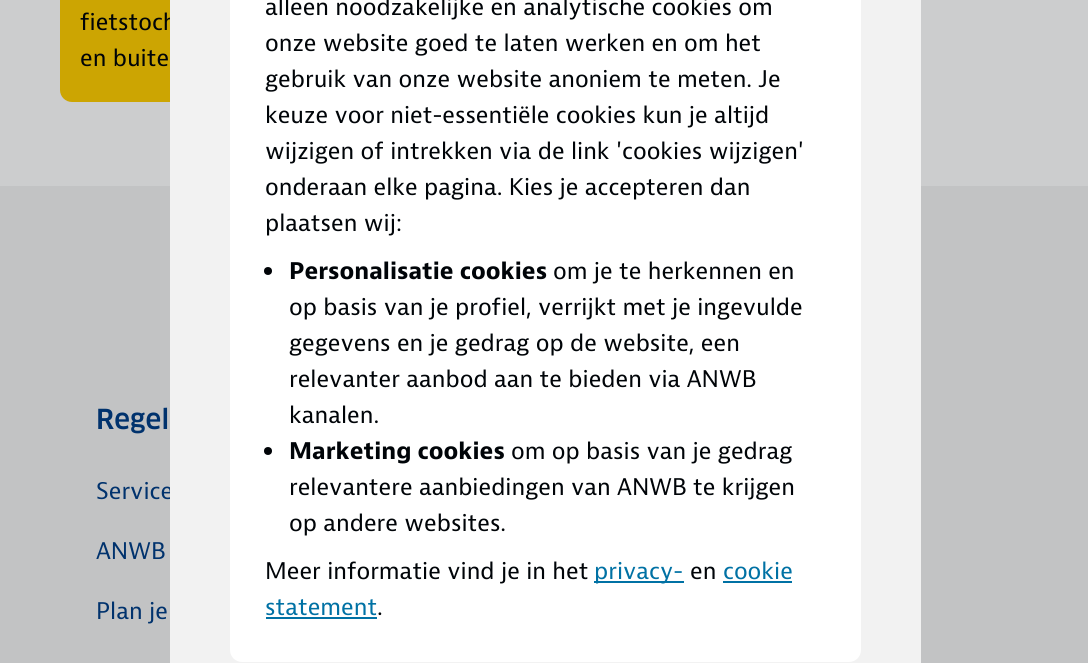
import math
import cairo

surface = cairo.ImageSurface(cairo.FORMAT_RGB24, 1088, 663)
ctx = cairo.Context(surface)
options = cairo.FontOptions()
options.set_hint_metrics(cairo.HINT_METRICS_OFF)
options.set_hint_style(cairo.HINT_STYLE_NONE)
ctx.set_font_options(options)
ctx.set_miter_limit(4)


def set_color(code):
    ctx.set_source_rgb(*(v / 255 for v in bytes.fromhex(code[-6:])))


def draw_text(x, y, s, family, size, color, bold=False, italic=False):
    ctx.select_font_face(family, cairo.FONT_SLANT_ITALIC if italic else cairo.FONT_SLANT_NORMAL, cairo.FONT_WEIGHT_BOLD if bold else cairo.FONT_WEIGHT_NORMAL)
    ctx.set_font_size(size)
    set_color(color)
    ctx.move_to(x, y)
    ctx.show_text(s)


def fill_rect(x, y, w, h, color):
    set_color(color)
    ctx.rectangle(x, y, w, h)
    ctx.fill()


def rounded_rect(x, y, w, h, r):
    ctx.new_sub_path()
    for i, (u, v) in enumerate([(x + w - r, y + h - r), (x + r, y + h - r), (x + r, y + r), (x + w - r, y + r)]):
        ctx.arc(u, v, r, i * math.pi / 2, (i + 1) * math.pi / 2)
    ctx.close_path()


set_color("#cccdce")
ctx.paint()
set_color("#cca502")
rounded_rect(61, -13, 306, 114, 11)
ctx.fill_preserve()
ctx.stroke()
draw_text(80, 30, "fietstoch", "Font", 24, "#000408")
draw_text(80, 66, "en buite", "Font", 24, "#000408")
fill_rect(0, 186, 1088, 477, "#c2c3c4")
draw_text(96, 499, "Service", "Font", 24, "#00326d")
fill_rect(170, 0, 751, 663, "#f2f2f2")
set_color("#ffffff")
rounded_rect(230, -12, 631, 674, 12)
ctx.fill()
draw_text(265, 15, "alleen noodzakelijke en analytische cookies om", "Font", 24, "#000408")
draw_text(265, 51, "onze website goed te laten werken en om het", "Font", 24, "#000408")
draw_text(265, 87, "gebruik van onze website anoniem te meten. Je", "Font", 24, "#000408")
draw_text(265, 123, "keuze voor niet-essentiële cookies kun je altijd", "Font", 24, "#000408")
draw_text(265, 159, "wijzigen of intrekken via de link 'cookies wijzigen'", "Font", 24, "#000408")
draw_text(265, 195, "onderaan elke pagina. Kies je accepteren dan", "Font", 24, "#000408")
draw_text(265, 231, "plaatsen wij:", "Font", 24, "#000408")
set_color("#000307")
ctx.new_path()
ctx.arc(268, 271, 4, 0, 2 * math.pi)
ctx.fill()
draw_text(289, 279, "Personalisatie cookies", "Font", 24, "#000408", bold=True)
draw_text(553, 279, "om je te herkennen en", "Font", 24, "#000408")
draw_text(289, 315, "op basis van je profiel, verrijkt met je ingevulde", "Font", 24, "#000408")
draw_text(289, 351, "gegevens en je gedrag op de website, een", "Font", 24, "#000408")
draw_text(289, 387, "relevanter aanbod aan te bieden via ANWB", "Font", 24, "#000408")
draw_text(289, 423, "kanalen.", "Font", 24, "#000408")
set_color("#000307")
ctx.new_path()
ctx.arc(268, 451, 4, 0, 2 * math.pi)
ctx.fill()
draw_text(289, 459, "Marketing cookies", "Font", 24, "#000408", bold=True)
draw_text(511, 459, "om op basis van je gedrag", "Font", 24, "#000408")
draw_text(289, 495, "relevantere aanbiedingen van ANWB te krijgen", "Font", 24, "#000408")
draw_text(289, 531, "op andere websites.", "Font", 24, "#000408")
draw_text(265, 579, "Meer informatie vind je in het", "Font", 24, "#000408")
fill_rect(594, 581, 90, 2, "#0071a4")
draw_text(594, 579, "privacy-", "Font", 24, "#0071a4")
draw_text(690, 579, "en", "Font", 24, "#000408")
draw_text(723, 579, "cookie", "Font", 24, "#0071a4")
fill_rect(723, 581, 69, 2, "#0071a4")
draw_text(265, 615, "statement", "Font", 24, "#0071a4")
fill_rect(266, 617, 111, 2, "#0071a4")
draw_text(377, 615, ".", "Font", 24, "#000408")
draw_text(96, 429, "Regel", "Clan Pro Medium", 27, "#00326d")
draw_text(96, 559, "ANWB", "Font", 24, "#00326d")
draw_text(96, 619, "Plan je", "Font", 24, "#00326d")
surface.write_to_png("output.png")
